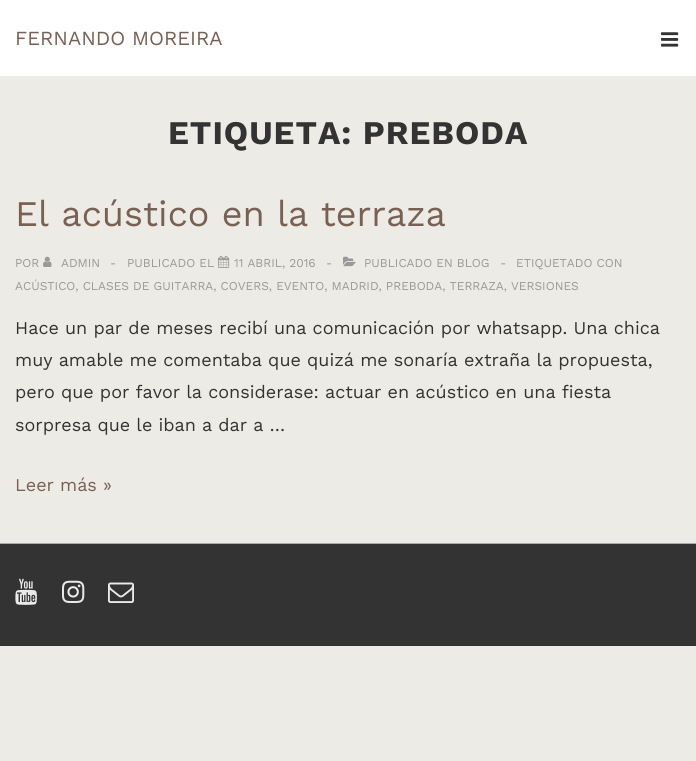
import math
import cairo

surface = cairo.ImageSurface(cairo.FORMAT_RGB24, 696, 761)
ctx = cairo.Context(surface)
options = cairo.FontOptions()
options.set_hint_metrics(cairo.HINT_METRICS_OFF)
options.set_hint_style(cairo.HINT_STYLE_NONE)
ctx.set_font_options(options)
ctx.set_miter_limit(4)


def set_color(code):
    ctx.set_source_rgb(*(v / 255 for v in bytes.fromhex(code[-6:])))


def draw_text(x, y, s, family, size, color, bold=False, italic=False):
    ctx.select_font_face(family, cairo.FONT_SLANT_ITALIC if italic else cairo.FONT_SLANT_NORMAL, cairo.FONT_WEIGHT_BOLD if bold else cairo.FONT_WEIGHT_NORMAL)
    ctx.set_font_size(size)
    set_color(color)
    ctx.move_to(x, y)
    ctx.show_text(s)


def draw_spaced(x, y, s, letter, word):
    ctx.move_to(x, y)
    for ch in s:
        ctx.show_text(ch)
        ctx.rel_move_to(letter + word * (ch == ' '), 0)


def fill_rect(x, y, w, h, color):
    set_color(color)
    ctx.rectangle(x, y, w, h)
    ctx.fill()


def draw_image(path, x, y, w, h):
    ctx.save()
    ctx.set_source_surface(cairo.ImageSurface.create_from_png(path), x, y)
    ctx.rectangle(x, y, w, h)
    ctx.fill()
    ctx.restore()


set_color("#edebe5")
ctx.paint()
fill_rect(0, 0, 696, 76, "#ffffff")
draw_text(15, 45, "FERNANDO MOREIRA", "Work Sans", 20, "#786052")
draw_image("assets/img1.png", 661, 32, 18, 15)
ctx.select_font_face("Work Sans", cairo.FONT_SLANT_NORMAL, cairo.FONT_WEIGHT_BOLD)
ctx.set_font_size(33)
set_color("#333333")
draw_spaced(168, 144, "ETIQUETA: PREBODA", 1, 0)
draw_text(15, 226, "El acústico en la terraza", "Work Sans", 36, "#786052")
draw_text(15, 267, "POR", "Work Sans", 12, "#999999")
draw_image("assets/img2.png", 43, 256, 9, 11)
draw_text(61, 267, "ADMIN", "Work Sans", 12, "#999999")
draw_text(110, 267, "-", "Work Sans", 12, "#999999")
draw_text(127, 267, "PUBLICADO EL", "Work Sans", 12, "#999999")
draw_image("assets/img3.png", 218, 255, 12, 13)
draw_text(234, 267, "11 ABRIL, 2016", "Work Sans", 12, "#999999")
draw_text(326, 267, "-", "Work Sans", 12, "#999999")
draw_image("assets/img4.png", 343, 256, 13, 11)
draw_text(364, 267, "PUBLICADO EN BLOG", "Work Sans", 12, "#999999")
draw_text(500, 267, "-", "Work Sans", 12, "#999999")
draw_text(516, 267, "ETIQUETADO CON", "Work Sans", 12, "#999999")
draw_text(15, 290, "ACÚSTICO, CLASES DE GUITARRA, COVERS, EVENTO, MADRID, PREBODA, TERRAZA, VERSIONES", "Work Sans", 12, "#999999")
draw_text(15, 334, "Hace un par de meses recibí una comunicación por whatsapp. Una chica", "Work Sans", 18, "#333333")
draw_text(15, 366, "muy amable me comentaba que quizá me sonaría extraña la propuesta,", "Work Sans", 18, "#333333")
draw_text(15, 398, "pero que por favor la considerase: actuar en acústico en una fiesta", "Work Sans", 18, "#333333")
draw_text(15, 431, "sorpresa que le iban a dar a …", "Work Sans", 18, "#333333")
draw_text(15, 491, "Leer más »", "Work Sans", 18, "#786052")
fill_rect(0, 544, 696, 102, "#333333")
fill_rect(0, 543, 696, 1, "#aaaaaa")
draw_image("assets/img5.png", 15, 578, 22, 27)
draw_image("assets/img6.png", 62, 580, 23, 23)
draw_image("assets/img7.png", 108, 582, 26, 21)
surface.write_to_png("output.png")
